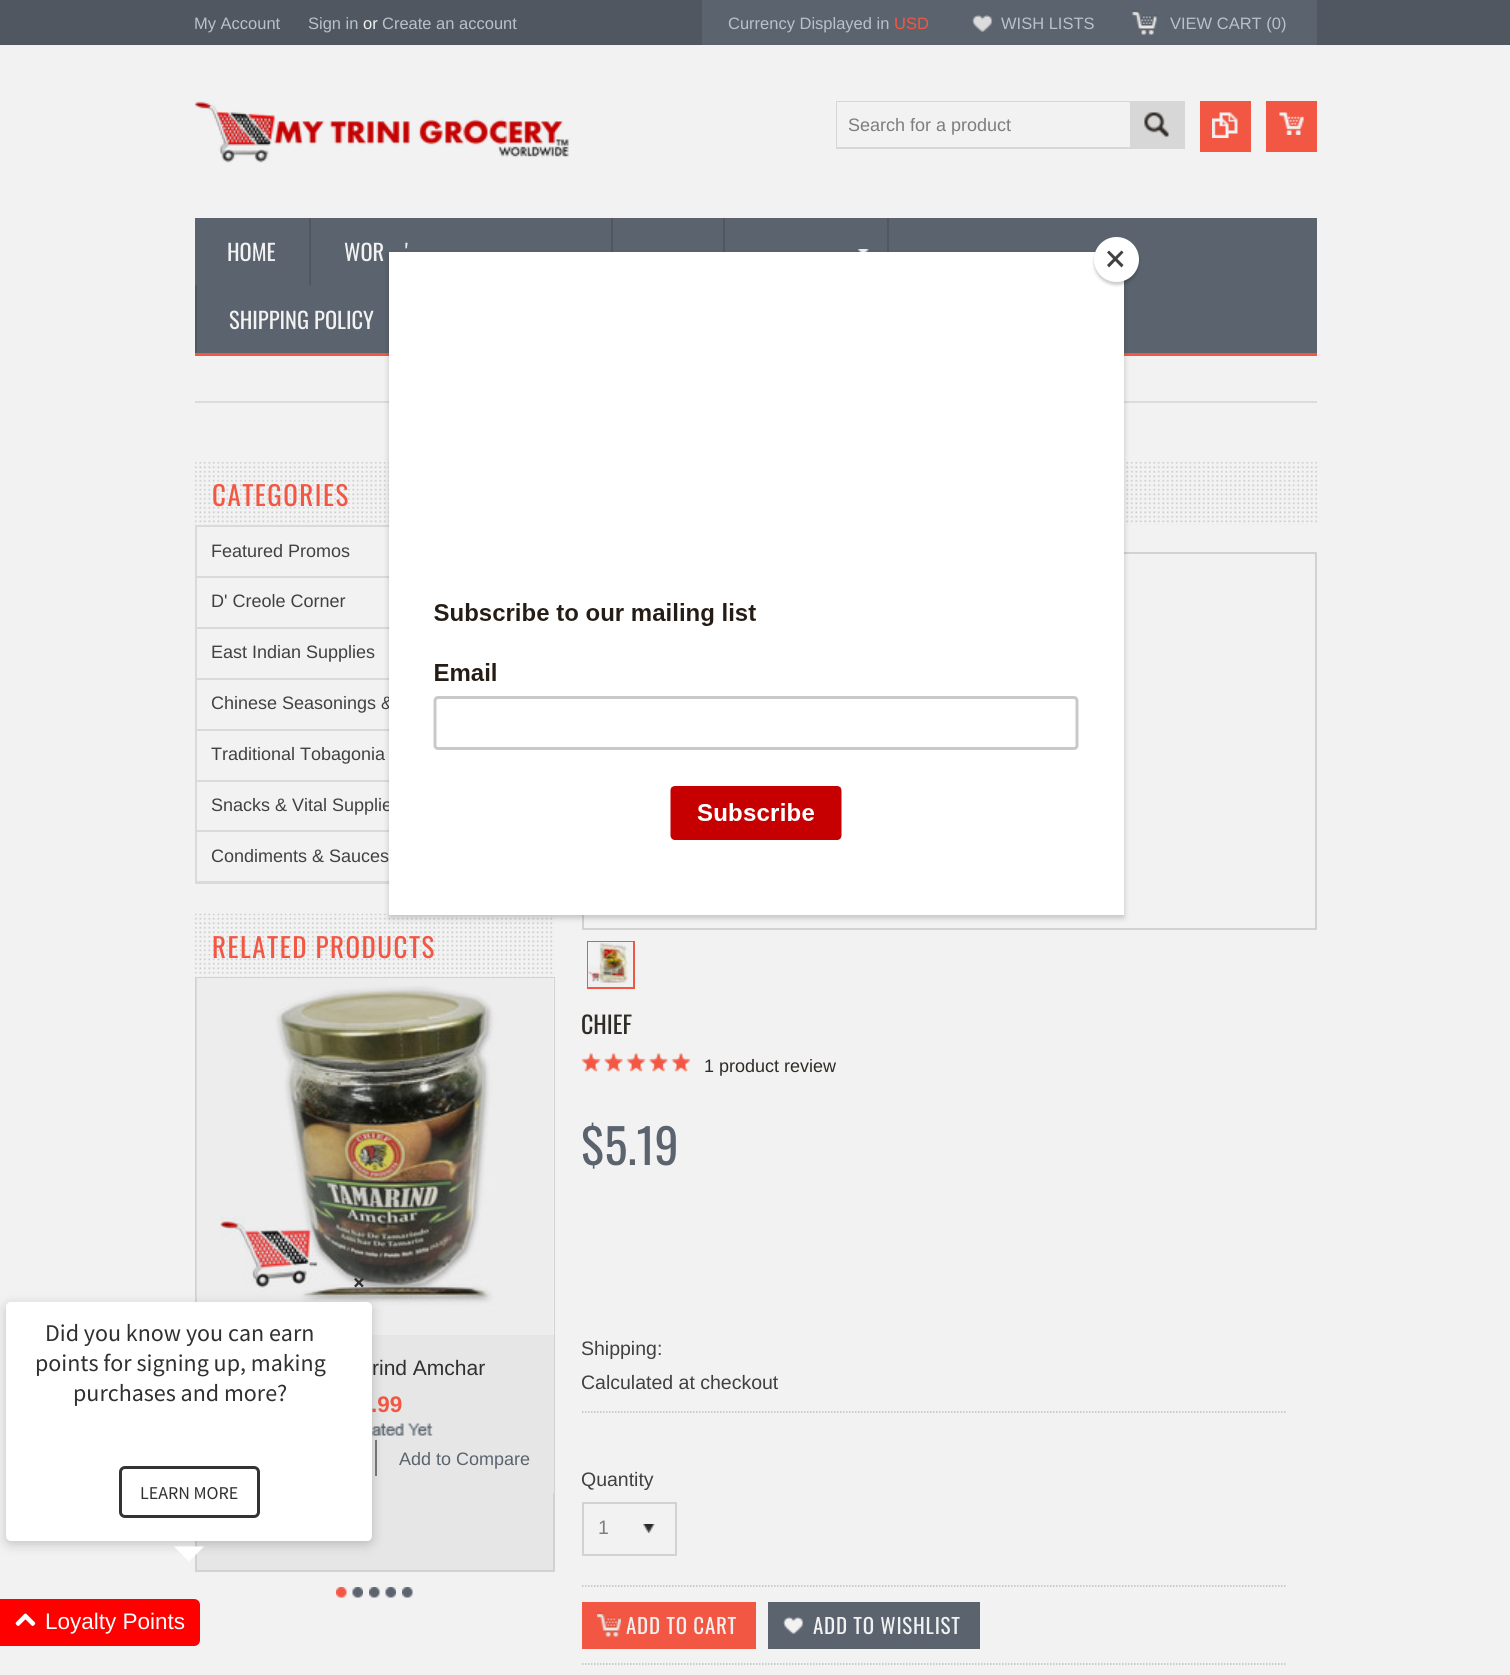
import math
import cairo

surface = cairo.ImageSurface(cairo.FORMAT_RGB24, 1510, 1675)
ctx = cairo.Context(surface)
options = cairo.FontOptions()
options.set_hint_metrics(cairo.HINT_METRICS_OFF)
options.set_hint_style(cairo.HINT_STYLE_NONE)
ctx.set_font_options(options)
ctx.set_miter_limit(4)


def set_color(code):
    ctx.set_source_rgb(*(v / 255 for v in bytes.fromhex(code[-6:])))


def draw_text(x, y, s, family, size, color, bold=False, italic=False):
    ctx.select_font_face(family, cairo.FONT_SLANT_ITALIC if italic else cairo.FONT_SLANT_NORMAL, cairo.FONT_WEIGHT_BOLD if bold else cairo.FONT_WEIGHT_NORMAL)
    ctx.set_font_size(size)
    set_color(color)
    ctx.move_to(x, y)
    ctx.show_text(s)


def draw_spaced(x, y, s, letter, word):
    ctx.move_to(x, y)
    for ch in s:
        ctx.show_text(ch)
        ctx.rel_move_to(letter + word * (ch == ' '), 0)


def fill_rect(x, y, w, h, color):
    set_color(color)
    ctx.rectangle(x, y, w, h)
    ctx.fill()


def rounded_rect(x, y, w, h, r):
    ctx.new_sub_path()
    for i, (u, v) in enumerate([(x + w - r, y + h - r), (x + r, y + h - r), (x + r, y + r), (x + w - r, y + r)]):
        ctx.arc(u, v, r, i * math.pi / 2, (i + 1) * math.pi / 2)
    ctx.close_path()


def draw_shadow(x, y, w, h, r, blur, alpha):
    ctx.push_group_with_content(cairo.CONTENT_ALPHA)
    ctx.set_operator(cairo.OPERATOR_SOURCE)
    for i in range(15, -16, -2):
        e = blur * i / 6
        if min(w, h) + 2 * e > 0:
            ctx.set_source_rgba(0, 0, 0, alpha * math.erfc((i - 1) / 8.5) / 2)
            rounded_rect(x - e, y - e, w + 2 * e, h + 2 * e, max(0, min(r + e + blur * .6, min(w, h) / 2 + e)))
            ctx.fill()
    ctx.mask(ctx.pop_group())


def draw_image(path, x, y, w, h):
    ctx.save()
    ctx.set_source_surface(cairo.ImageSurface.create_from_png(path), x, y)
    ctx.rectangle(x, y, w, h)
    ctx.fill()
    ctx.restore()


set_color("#f2f2f2")
ctx.paint()
fill_rect(0, 0, 1510, 45, "#505761")
draw_text(194, 29, "My Account", "Liberation Sans", 16.5, "#b9c1cb")
draw_text(308, 29, "Sign in", "Liberation Sans", 16.5, "#b9c1cb")
draw_text(363, 29, "or", "Liberation Sans", 16.5, "#f2f2f2")
draw_text(382, 29, "Create an account", "Liberation Sans", 16.5, "#b9c1cb")
fill_rect(702, 0, 615, 45, "#5a636e")
draw_text(728, 29, "Currency Displayed in", "Liberation Sans", 16.5, "#b9c1cb")
draw_text(894, 29, "USD", "Liberation Sans", 16.5, "#f25743")
draw_image("assets/img1.png", 972, 15, 21, 17)
draw_text(1001, 29, "WISH LISTS", "Liberation Sans", 16.5, "#b9c1cb")
draw_image("assets/img2.png", 1132, 10, 25, 25)
draw_text(1170, 29, "VIEW CART (0)", "Liberation Sans", 16.5, "#b9c1cb")
draw_image("assets/img3.png", 195, 101, 374, 62)
ctx.rectangle(837, 102, 347, 46)
set_color("#d7d7d7")
ctx.stroke()
fill_rect(837, 102, 293, 45, "#f2f2f2")
draw_text(848, 131, "Search for a product", "Liberation Sans", 18, "#7d7d7d")
fill_rect(1130, 103, 53, 44, "#d7d7d7")
draw_image("assets/img4.png", 1144, 112, 25, 25)
fill_rect(1200, 101, 51, 51, "#f25743")
draw_image("assets/img5.png", 1212, 112, 26, 26)
fill_rect(1266, 101, 51, 51, "#f25743")
draw_image("assets/img6.png", 1279, 112, 25, 23)
fill_rect(195, 218, 1122, 135, "#5a636e")
fill_rect(195, 353, 1122, 3, "#f25743")
draw_text(227, 261, "HOME", "Oswald", 22.5, "#f2f2f2")
fill_rect(309, 218, 2, 67, "#505761")
draw_text(344, 261, "WOR", "Oswald", 22.5, "#f2f2f2")
draw_text(405, 261, "'", "Oswald", 22.5, "#f2f2f2")
fill_rect(611, 218, 2, 34, "#505761")
fill_rect(723, 218, 2, 34, "#505761")
draw_image("assets/img7.png", 858, 249, 11, 3)
fill_rect(887, 218, 2, 34, "#505761")
fill_rect(195, 285, 2, 68, "#505761")
draw_text(229, 329, "SHIPPING POLICY", "Oswald", 22.5, "#f2f2f2")
fill_rect(195, 401, 1122, 2, "#dcdcdc")
draw_image("assets/img8.png", 195, 462, 194, 63)
ctx.set_font_size(27)
set_color("#f25743")
draw_spaced(212, 506, "CATEGORIES", 1.5, 0)
ctx.rectangle(196, 526, 355, 357)
set_color("#dadada")
ctx.stroke()
fill_rect(197, 576, 192, 2, "#dadada")
draw_text(211, 557, "Featured Promos", "Liberation Sans", 18, "#414141")
fill_rect(197, 627, 192, 2, "#dadada")
draw_text(211, 607, "D' Creole Corner", "Liberation Sans", 18, "#414141")
fill_rect(197, 678, 192, 2, "#dadada")
draw_text(211, 658, "East Indian Supplies", "Liberation Sans", 18, "#414141")
fill_rect(197, 729, 192, 2, "#dadada")
draw_text(211, 709, "Chinese Seasonings &", "Liberation Sans", 18, "#414141")
fill_rect(197, 780, 192, 2, "#dadada")
draw_text(211, 760, "Traditional Tobagonia", "Liberation Sans", 18, "#414141")
fill_rect(197, 830, 192, 2, "#dadada")
draw_text(211, 811, "Snacks & Vital Supplie", "Liberation Sans", 18, "#414141")
fill_rect(197, 881, 192, 1, "#dadada")
draw_text(211, 862, "Condiments & Sauces", "Liberation Sans", 18, "#414141")
draw_image("assets/img9.png", 195, 913, 360, 64)
ctx.select_font_face("Oswald")
ctx.set_font_size(27)
set_color("#f25743")
draw_spaced(212, 958, "RELATED PRODUCTS", 1.5, 0)
fill_rect(197, 1493, 356, 77, "#e6e6e6")
ctx.rectangle(196, 978, 358, 593)
set_color("#d2d2d2")
ctx.stroke()
fill_rect(372, 1335, 182, 158, "#e6e6e6")
fill_rect(553, 978, 1, 357, "#f2f2f2")
draw_image("assets/img10.png", 196, 978, 357, 357)
draw_text(372, 1375, "rind Amchar", "Liberation Sans", 21, "#303030")
draw_text(371, 1412, ".99", "Liberation Sans", 22.5, "#f25743", bold=True)
draw_image("assets/img11.png", 372, 1423, 61, 13)
fill_rect(375, 1440, 2, 36, "#7a7a7a")
draw_text(399, 1465, "Add to Compare", "Liberation Sans", 18, "#5a636e")
draw_image("assets/img12.png", 336, 1587, 11, 11)
draw_image("assets/img13.png", 352, 1587, 11, 11)
draw_image("assets/img14.png", 369, 1587, 11, 11)
draw_image("assets/img13.png", 385, 1587, 11, 11)
draw_image("assets/img14.png", 402, 1587, 11, 11)
draw_image("assets/img15.png", 1126, 462, 191, 63)
ctx.rectangle(583, 553, 733, 376)
set_color("#d2d2d2")
ctx.stroke()
ctx.rectangle(588, 942, 46, 46)
set_color("#f25743")
ctx.stroke()
draw_image("assets/img16.png", 588, 942, 45, 45)
draw_text(581, 1034, "CHIEF", "Oswald", 24, "#2f2c27")
draw_image("assets/img17.png", 582, 1053, 108, 19)
draw_text(704, 1072, "1 product review", "Liberation Sans", 18, "#2f2c27")
draw_text(581, 1165, "$5.19", "Oswald", 48, "#5a636e")
ctx.new_path()
ctx.move_to(582, 1412)
ctx.line_to(1287, 1412)
set_color("#bebebe")
ctx.set_line_width(1.5)
ctx.set_dash([1.5, 1.5])
ctx.stroke()
draw_text(581, 1355, "Shipping:", "Liberation Sans", 19.5, "#414141")
draw_text(581, 1389, "Calculated at checkout", "Liberation Sans", 19.5, "#414141")
ctx.new_path()
ctx.move_to(582, 1664)
ctx.line_to(1287, 1664)
set_color("#bebebe")
ctx.stroke()
ctx.new_path()
ctx.move_to(582, 1586)
ctx.line_to(1287, 1586)
ctx.stroke()
draw_text(581, 1486, "Quantity", "Liberation Sans", 19.5, "#414141")
ctx.rectangle(583, 1503, 93, 52)
set_color("#d2d2d2")
ctx.set_line_width(2)
ctx.set_dash([])
ctx.stroke()
draw_image("assets/img18.png", 643, 1524, 12, 9)
draw_text(598, 1534, "1", "Liberation Sans", 19.5, "#7d7d7d")
fill_rect(582, 1602, 174, 47, "#f25743")
draw_image("assets/img19.png", 597, 1612, 24, 25)
ctx.select_font_face("Oswald")
ctx.set_font_size(21)
set_color("#f2f2f2")
draw_spaced(626, 1634, "ADD TO CART", 0.75, 0)
fill_rect(768, 1602, 212, 47, "#5a636e")
draw_image("assets/img20.png", 783, 1617, 21, 17)
set_color("#f2f2f2")
draw_spaced(813, 1634, "ADD TO WISHLIST", 0.75, 0)
set_color("#000000")
draw_shadow(389, 255, 735, 663, 0, 3, 0.2)
draw_image("assets/img21.png", 389, 252, 735, 663)
draw_shadow(1094, 240, 45, 45, 22.5, 1.5, 0.2)
set_color("#ffffff")
ctx.arc(1116.5, 259.5, 22.5, 0, 2 * math.pi)
ctx.fill()
set_color("#414141")
ctx.new_path()
ctx.move_to(1121.5, 250.5)
ctx.line_to(1123.5, 252.5)
ctx.line_to(1109, 267.5)
ctx.line_to(1107, 265)
ctx.close_path()
ctx.fill()
ctx.new_path()
ctx.move_to(1107, 252.5)
ctx.line_to(1109, 250.5)
ctx.line_to(1123.5, 265)
ctx.line_to(1121.5, 267.5)
ctx.close_path()
ctx.fill()
draw_text(353, 1290, "×", "Source Sans Pro", 22.5, "#303030", bold=True)
set_color("#000000")
draw_shadow(6, 1305, 366, 239, 5, 6, 0.2)
set_color("#ffffff")
rounded_rect(6, 1302, 366, 239, 5)
ctx.fill()
draw_text(45, 1341, "Did you know you can earn", "Source Sans Pro", 24, "#303030")
draw_text(35, 1371, "points for signing up, making", "Source Sans Pro", 24, "#303030")
draw_text(73, 1401, "purchases and more?", "Source Sans Pro", 24, "#303030")
rounded_rect(120.5, 1467.5, 138, 49, 4.5)
set_color("#333333")
ctx.set_line_width(3)
ctx.stroke()
draw_text(140, 1499, "LEARN MORE", "Source Sans Pro", 18, "#303030")
set_color("#ffffff")
ctx.new_path()
ctx.move_to(174, 1546.5)
ctx.line_to(204, 1546.5)
ctx.line_to(189, 1561.5)
ctx.close_path()
ctx.fill()
set_color("#ff0000")
ctx.new_path()
ctx.move_to(0, 1599)
ctx.line_to(194, 1599)
ctx.curve_to(197.5, 1599, 200, 1601.5, 200, 1605)
ctx.line_to(200, 1640)
ctx.curve_to(200, 1643.5, 197.5, 1646, 194, 1646)
ctx.line_to(0, 1646)
ctx.close_path()
ctx.fill()
draw_image("assets/img22.png", 15, 1613, 21, 13)
draw_text(45, 1629, "Loyalty Points", "Liberation Sans", 22.5, "#ffffff")
surface.write_to_png("output.png")
